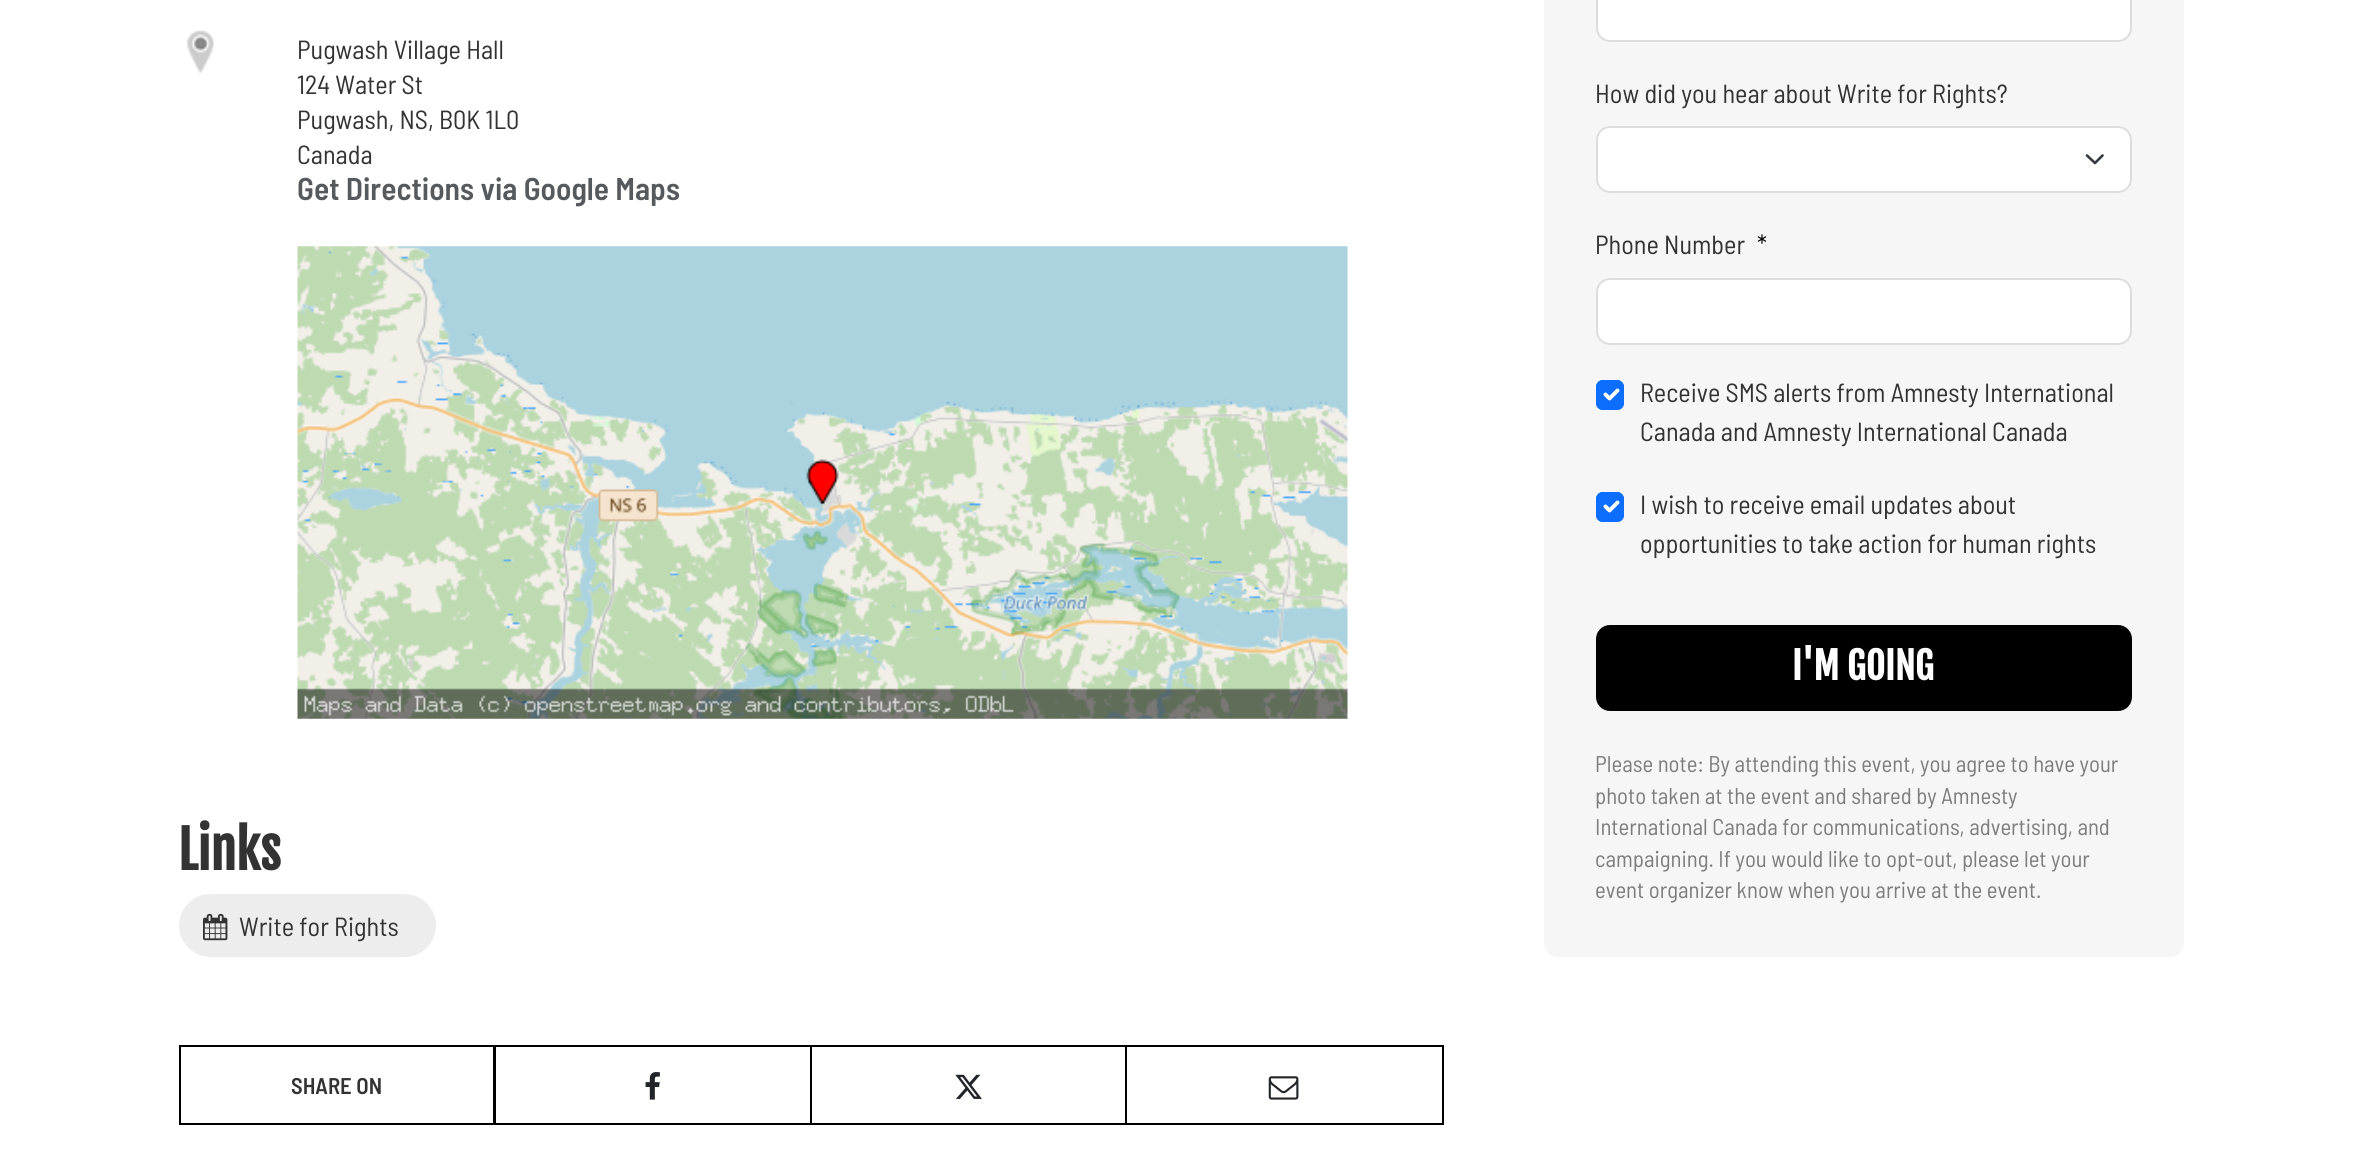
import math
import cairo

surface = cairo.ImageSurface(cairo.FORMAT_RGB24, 2360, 1154)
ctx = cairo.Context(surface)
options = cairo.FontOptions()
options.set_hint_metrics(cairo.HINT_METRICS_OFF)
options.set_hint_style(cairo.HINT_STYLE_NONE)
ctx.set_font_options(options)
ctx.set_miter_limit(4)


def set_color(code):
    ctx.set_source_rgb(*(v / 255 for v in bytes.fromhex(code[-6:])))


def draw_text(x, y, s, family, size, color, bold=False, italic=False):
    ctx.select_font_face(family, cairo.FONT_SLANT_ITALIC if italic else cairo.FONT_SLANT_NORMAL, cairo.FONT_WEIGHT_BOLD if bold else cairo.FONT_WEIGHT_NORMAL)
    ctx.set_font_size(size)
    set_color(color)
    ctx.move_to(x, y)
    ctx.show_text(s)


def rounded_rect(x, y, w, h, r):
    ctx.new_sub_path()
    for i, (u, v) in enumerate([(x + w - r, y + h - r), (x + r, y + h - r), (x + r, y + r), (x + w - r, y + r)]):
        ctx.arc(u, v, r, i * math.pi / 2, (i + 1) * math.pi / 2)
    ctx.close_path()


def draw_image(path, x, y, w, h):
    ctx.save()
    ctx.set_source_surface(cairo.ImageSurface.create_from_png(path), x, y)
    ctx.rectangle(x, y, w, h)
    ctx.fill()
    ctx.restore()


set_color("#ffffff")
ctx.paint()
draw_image("assets/img1.png", 187, 30, 27, 44)
draw_text(297, 59, "Pugwash Village Hall", "Barlow Semi Condensed", 26.25, "#333333")
draw_text(297, 94, "124 Water St", "Barlow Semi Condensed", 26.25, "#333333")
draw_text(297, 129, "Pugwash, NS, B0K 1L0", "Barlow Semi Condensed", 26.25, "#333333")
draw_text(297, 164, "Canada", "Barlow Semi Condensed", 26.25, "#333333")
draw_text(297, 200, "Get Directions via Google Maps", "Barlow Semi Condensed SemiBold", 31.5, "#575a5d")
draw_image("assets/img2.png", 297, 246, 1051, 473)
draw_text(178, 870, "Links", "Fjalla One", 52, "#333333", bold=True)
set_color("#ededed")
rounded_rect(179, 894, 257, 63, 31.5)
ctx.fill()
draw_image("assets/img3.png", 203, 913, 25, 28)
draw_text(239, 936, "Write for Rights", "Barlow Semi Condensed", 26.25, "#333333")
set_color("#f6f6f6")
rounded_rect(1544, -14, 640, 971, 14)
ctx.fill()
set_color("#ffffff")
rounded_rect(1598, -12, 532, 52, 12)
ctx.fill()
rounded_rect(1597, -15, 534, 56, 13)
set_color("#dddddd")
ctx.stroke()
draw_text(1595, 103, "How did you hear about Write for Rights?", "Barlow Semi Condensed", 26.25, "#333333")
set_color("#ffffff")
rounded_rect(1596, 126, 536, 67, 14)
ctx.fill()
ctx.new_path()
ctx.move_to(2087, 155.5)
ctx.line_to(2095, 163)
ctx.line_to(2102.5, 155.5)
set_color("#343a40")
ctx.set_line_width(2.6)
ctx.set_line_cap(cairo.LINE_CAP_ROUND)
ctx.set_line_join(cairo.LINE_JOIN_ROUND)
ctx.stroke()
rounded_rect(1597, 127, 534, 65, 13)
set_color("#dddddd")
ctx.set_line_width(2)
ctx.set_line_cap(cairo.LINE_CAP_BUTT)
ctx.set_line_join(cairo.LINE_JOIN_MITER)
ctx.stroke()
draw_text(1595, 254, "Phone Number", "Barlow Semi Condensed", 26.25, "#333333")
draw_text(1757, 254, "*", "Barlow Semi Condensed", 26.25, "#000000")
set_color("#ffffff")
rounded_rect(1597, 279, 534, 65, 13)
ctx.fill_preserve()
set_color("#dddddd")
ctx.stroke()
set_color("#0d6efd")
rounded_rect(1596, 380, 28, 30, 7)
ctx.fill()
ctx.new_path()
ctx.move_to(1605.5, 394.5)
ctx.line_to(1609.5, 398.5)
ctx.line_to(1617.5, 390.5)
set_color("#ffffff")
ctx.set_line_width(3.9)
ctx.set_line_cap(cairo.LINE_CAP_ROUND)
ctx.set_line_join(cairo.LINE_JOIN_ROUND)
ctx.stroke()
rounded_rect(1597, 381, 26, 28, 6)
set_color("#0d6efd")
ctx.set_line_width(2)
ctx.set_line_cap(cairo.LINE_CAP_BUTT)
ctx.set_line_join(cairo.LINE_JOIN_MITER)
ctx.stroke()
draw_text(1640, 402, "Receive SMS alerts from Amnesty International", "Barlow Semi Condensed", 26.25, "#333333")
draw_text(1640, 441, "Canada and Amnesty International Canada", "Barlow Semi Condensed", 26.25, "#333333")
set_color("#0d6efd")
rounded_rect(1596, 492, 28, 30, 7)
ctx.fill()
ctx.new_path()
ctx.move_to(1605.5, 506.5)
ctx.line_to(1609.5, 510.5)
ctx.line_to(1617.5, 502.5)
set_color("#ffffff")
ctx.set_line_width(3.9)
ctx.set_line_cap(cairo.LINE_CAP_ROUND)
ctx.set_line_join(cairo.LINE_JOIN_ROUND)
ctx.stroke()
rounded_rect(1597, 493, 26, 28, 6)
set_color("#0d6efd")
ctx.set_line_width(2)
ctx.set_line_cap(cairo.LINE_CAP_BUTT)
ctx.set_line_join(cairo.LINE_JOIN_MITER)
ctx.stroke()
draw_text(1640, 514, "I wish to receive email updates about", "Barlow Semi Condensed", 26.25, "#333333")
draw_text(1640, 553, "opportunities to take action for human rights", "Barlow Semi Condensed", 26.25, "#333333")
set_color("#000000")
rounded_rect(1597, 626, 534, 84, 13)
ctx.fill_preserve()
ctx.stroke()
draw_text(1792, 680, "I'M GOING", "Fjalla One", 37, "#ffffff", bold=True)
draw_text(1595, 772, "Please note: By attending this event, you agree to have your", "Barlow Semi Condensed", 22.75, "#7d7d7d")
draw_text(1595, 804, "photo taken at the event and shared by Amnesty", "Barlow Semi Condensed", 22.75, "#7d7d7d")
draw_text(1595, 835, "International Canada for communications, advertising, and", "Barlow Semi Condensed", 22.75, "#7d7d7d")
draw_text(1595, 867, "campaigning. If you would like to opt-out, please let your", "Barlow Semi Condensed", 22.75, "#7d7d7d")
draw_text(1595, 898, "event organizer know when you arrive at the event.", "Barlow Semi Condensed", 22.75, "#7d7d7d")
ctx.rectangle(180, 1046, 314, 78)
set_color("#000000")
ctx.stroke()
draw_text(291, 1094, "SHARE ON", "Barlow Semi Condensed SemiBold", 22.75, "#333333")
ctx.rectangle(495, 1046, 316, 78)
set_color("#000000")
ctx.stroke()
draw_image("assets/img4.png", 645, 1072, 15, 28)
ctx.rectangle(811, 1046, 315, 78)
ctx.stroke()
draw_image("assets/img5.png", 955, 1074, 27, 25)
ctx.rectangle(1126, 1046, 317, 78)
ctx.stroke()
draw_image("assets/img6.png", 1268, 1076, 31, 24)
surface.write_to_png("output.png")
